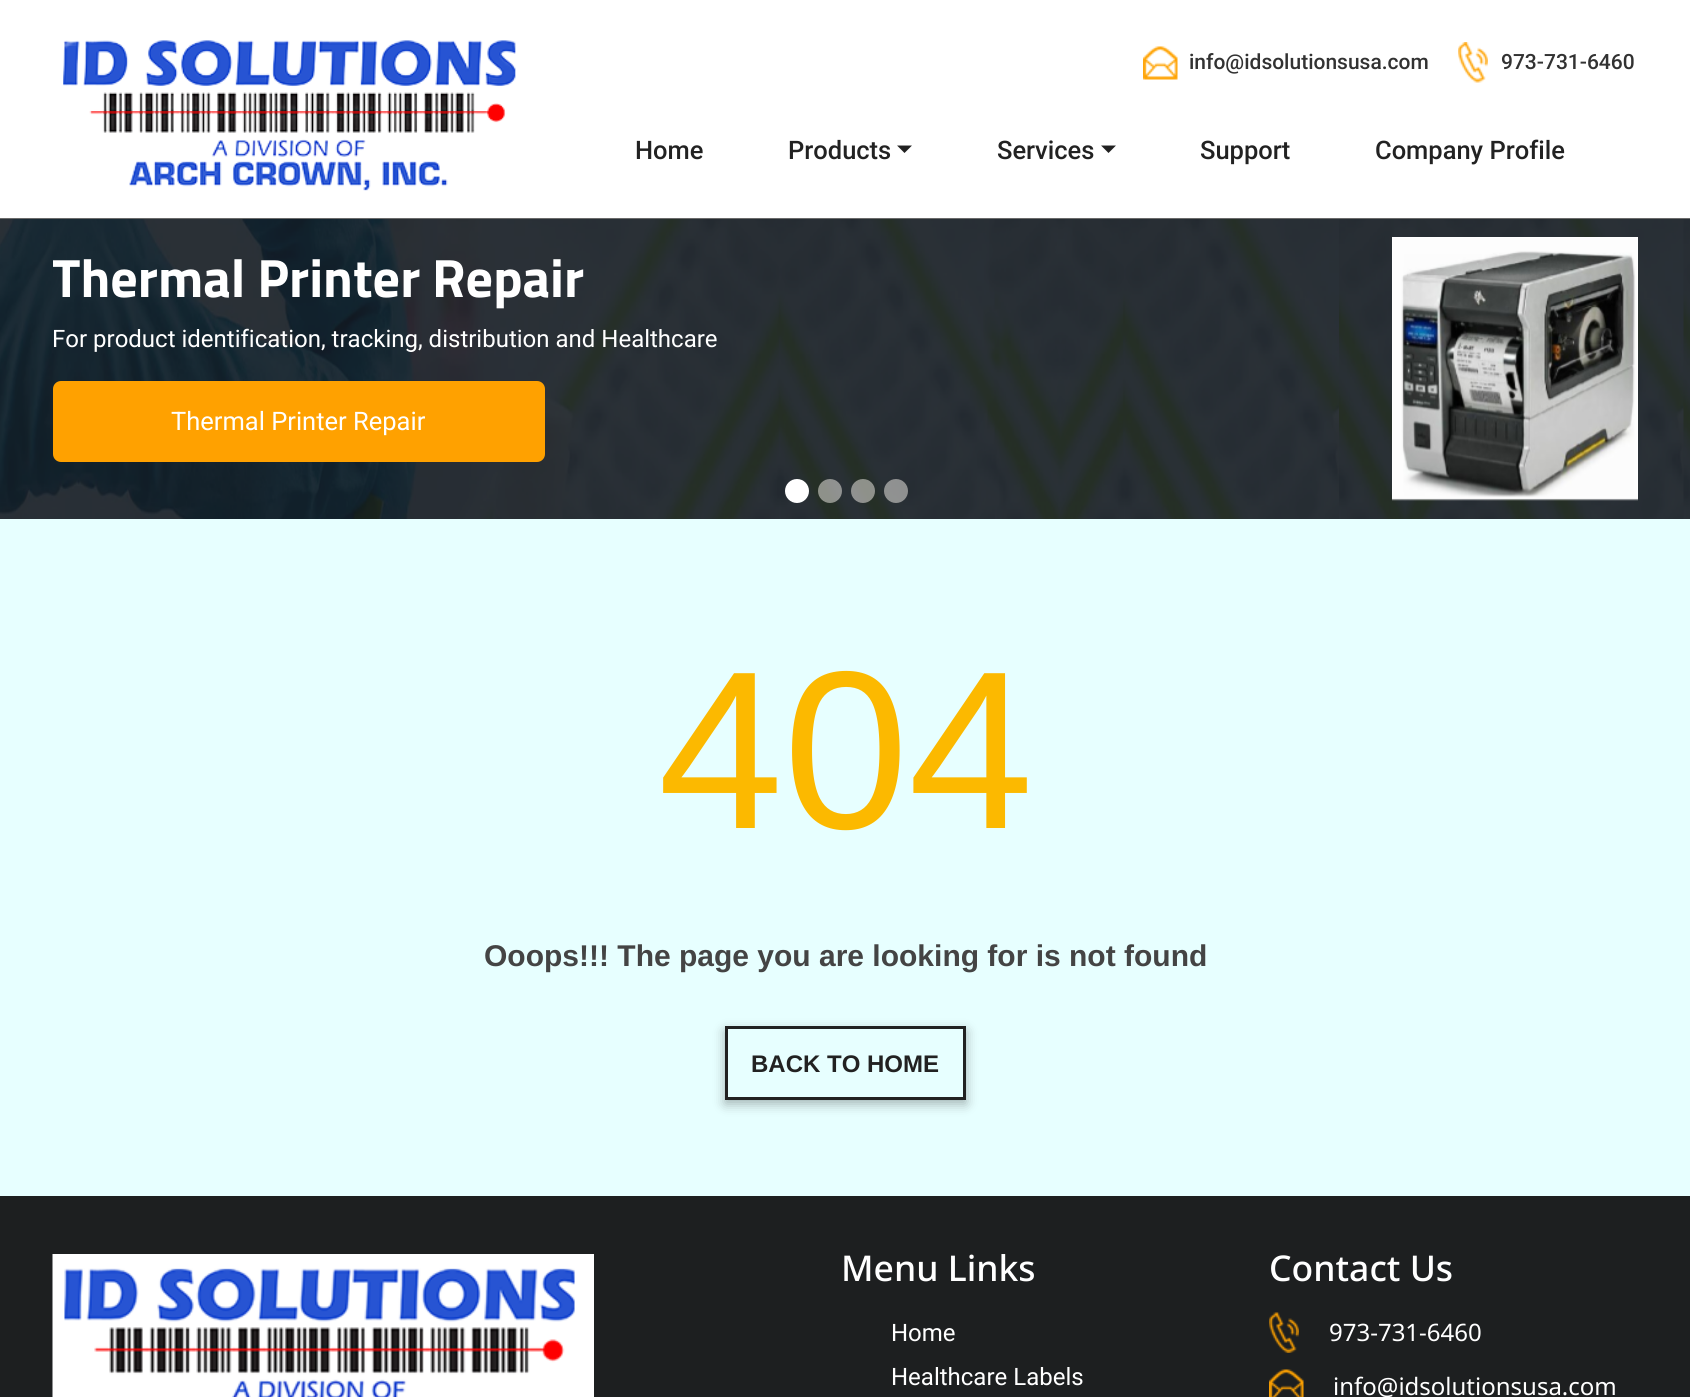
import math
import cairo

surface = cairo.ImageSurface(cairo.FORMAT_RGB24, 1690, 1397)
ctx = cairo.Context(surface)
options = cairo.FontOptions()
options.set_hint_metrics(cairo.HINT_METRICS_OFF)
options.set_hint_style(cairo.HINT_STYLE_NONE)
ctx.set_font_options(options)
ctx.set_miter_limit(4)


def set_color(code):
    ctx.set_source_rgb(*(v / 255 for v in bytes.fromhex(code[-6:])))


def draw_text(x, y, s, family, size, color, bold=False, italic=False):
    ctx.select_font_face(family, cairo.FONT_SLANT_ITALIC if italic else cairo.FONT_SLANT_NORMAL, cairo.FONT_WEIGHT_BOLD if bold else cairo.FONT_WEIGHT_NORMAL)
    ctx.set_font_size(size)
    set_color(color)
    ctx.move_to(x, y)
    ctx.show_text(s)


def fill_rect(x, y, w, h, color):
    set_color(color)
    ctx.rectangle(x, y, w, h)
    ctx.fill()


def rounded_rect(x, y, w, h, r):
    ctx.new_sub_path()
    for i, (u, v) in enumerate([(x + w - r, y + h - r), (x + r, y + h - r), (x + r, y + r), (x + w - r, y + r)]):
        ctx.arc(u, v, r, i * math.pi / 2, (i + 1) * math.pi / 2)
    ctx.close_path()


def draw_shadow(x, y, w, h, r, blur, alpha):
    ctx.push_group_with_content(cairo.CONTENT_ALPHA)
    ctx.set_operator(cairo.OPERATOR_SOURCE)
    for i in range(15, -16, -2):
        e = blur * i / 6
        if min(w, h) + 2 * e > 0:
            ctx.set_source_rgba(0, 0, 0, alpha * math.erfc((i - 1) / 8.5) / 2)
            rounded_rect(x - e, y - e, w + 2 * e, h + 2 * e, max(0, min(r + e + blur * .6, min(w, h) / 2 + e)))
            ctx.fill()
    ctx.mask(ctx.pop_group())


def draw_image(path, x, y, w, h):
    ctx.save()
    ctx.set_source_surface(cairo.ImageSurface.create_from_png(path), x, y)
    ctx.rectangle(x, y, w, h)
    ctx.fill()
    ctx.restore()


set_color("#ffffff")
ctx.paint()
fill_rect(0, 218, 1690, 1, "#6a6a6a")
draw_image("assets/img1.png", 63, 40, 453, 151)
draw_image("assets/img2.png", 1143, 46, 35, 34)
draw_text(1189, 69, "info@idsolutionsusa.com", "Roboto Medium", 21, "#323232")
draw_image("assets/img3.png", 1458, 42, 30, 41)
draw_text(1501, 69, "973-731-6460", "Roboto Medium", 21, "#323232")
draw_text(635, 159, "Home", "Roboto Medium", 25.5, "#222222")
draw_text(788, 159, "Products", "Roboto Medium", 25.5, "#222222")
set_color("#212121")
ctx.new_path()
ctx.move_to(897, 145.5)
ctx.line_to(912, 145.5)
ctx.line_to(904.5, 153)
ctx.close_path()
ctx.fill()
draw_text(997, 159, "Services", "Roboto Medium", 25.5, "#222222")
set_color("#212121")
ctx.new_path()
ctx.move_to(1101, 145.5)
ctx.line_to(1116, 145.5)
ctx.line_to(1108.5, 153)
ctx.close_path()
ctx.fill()
draw_text(1200, 159, "Support", "Roboto Medium", 25.5, "#222222")
draw_text(1375, 159, "Company Profile", "Roboto Medium", 25.5, "#222222")
draw_image("assets/img4.png", 0, 219, 1690, 300)
ctx.save()
ctx.rectangle(53, 219, 1585, 300)
ctx.clip()
draw_text(52, 297, "Thermal Printer Repair", "Titillium Web", 54, "#ffffff", bold=True)
ctx.restore()
draw_text(52, 347, "For product identification, tracking, distribution and Healthcare", "Roboto", 24, "#ffffff")
set_color("#ffa100")
rounded_rect(53, 381, 492, 81, 8)
ctx.fill()
draw_text(171, 430, "Thermal Printer Repair", "Roboto", 25.5, "#ffffff")
draw_image("assets/img5.png", 1392, 237, 246, 264)
ctx.arc(797, 491, 12, 0, 2 * math.pi)
ctx.fill()
ctx.set_source_rgba(0.969, 0.957, 0.933, 0.5)
ctx.arc(830, 491, 12, 0, 2 * math.pi)
ctx.fill()
ctx.arc(863, 491, 12, 0, 2 * math.pi)
ctx.fill()
ctx.arc(896, 491, 12, 0, 2 * math.pi)
ctx.fill()
fill_rect(0, 519, 1690, 677, "#e7ffff")
draw_text(658, 828, "404", "Liberation Sans", 225, "#fcb900")
draw_text(484, 966, "Ooops!!! The page you are looking for is not found", "Liberation Sans", 30, "#444444", bold=True)
ctx.save()
ctx.set_fill_rule(cairo.FILL_RULE_EVEN_ODD)
ctx.new_path()
ctx.move_to(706, 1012)
ctx.line_to(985, 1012)
ctx.line_to(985, 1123)
ctx.line_to(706, 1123)
ctx.close_path()
ctx.move_to(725, 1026)
ctx.line_to(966, 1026)
ctx.line_to(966, 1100)
ctx.line_to(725, 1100)
ctx.close_path()
ctx.clip()
set_color("#000000")
draw_shadow(725, 1031, 241, 73, 0, 6, 0.3)
ctx.restore()
ctx.rectangle(726.5, 1027.5, 238, 71)
set_color("#222222")
ctx.set_line_width(3)
ctx.stroke()
draw_text(751, 1072, "BACK TO HOME", "Liberation Sans", 24, "#222222", bold=True)
fill_rect(0, 1196, 1690, 201, "#1d1f20")
draw_image("assets/img6.png", 52, 1254, 542, 143)
draw_text(841, 1281, "Menu Links", "Noto Sans Medium", 35.5, "#ffffff")
draw_text(891, 1341, "Home", "Roboto", 24, "#ffffff")
draw_text(891, 1385, "Healthcare Labels", "Roboto", 24, "#ffffff")
draw_text(1269, 1281, "Contact Us", "Noto Sans Medium", 35.5, "#ffffff")
draw_image("assets/img7.png", 1269, 1312, 30, 41)
draw_text(1329, 1341, "973-731-6460", "Noto Sans", 24, "#ffffff")
draw_image("assets/img8.png", 1269, 1369, 35, 28)
draw_text(1333, 1395, "info@idsolutionsusa.com", "Noto Sans", 24, "#ffffff")
surface.write_to_png("output.png")
